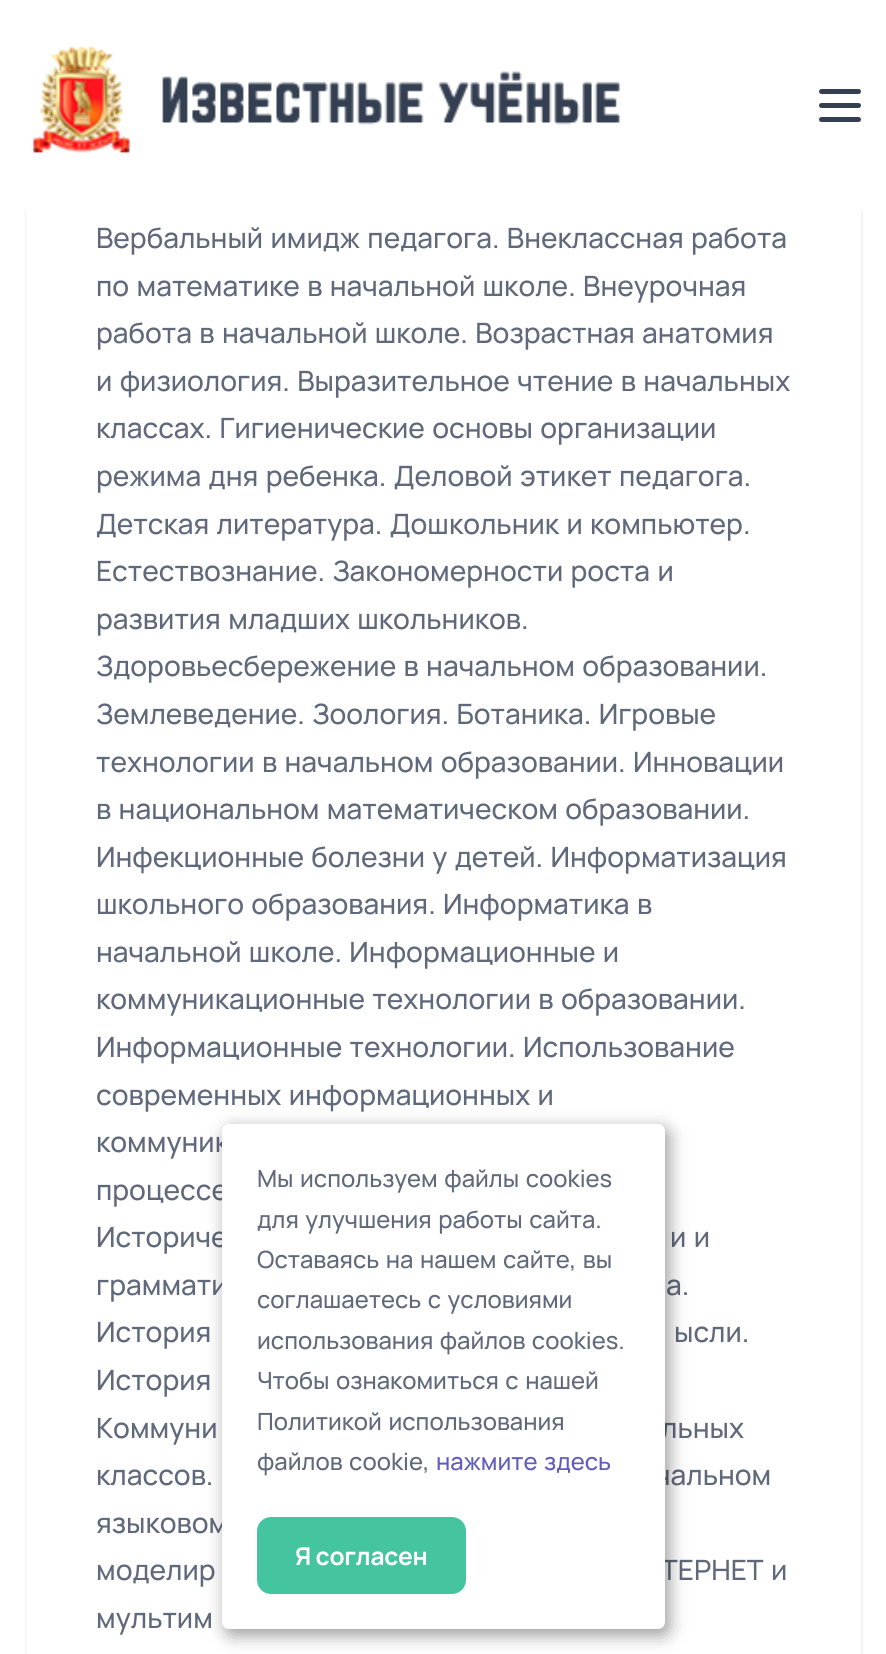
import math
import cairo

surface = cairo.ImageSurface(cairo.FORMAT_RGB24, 886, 1654)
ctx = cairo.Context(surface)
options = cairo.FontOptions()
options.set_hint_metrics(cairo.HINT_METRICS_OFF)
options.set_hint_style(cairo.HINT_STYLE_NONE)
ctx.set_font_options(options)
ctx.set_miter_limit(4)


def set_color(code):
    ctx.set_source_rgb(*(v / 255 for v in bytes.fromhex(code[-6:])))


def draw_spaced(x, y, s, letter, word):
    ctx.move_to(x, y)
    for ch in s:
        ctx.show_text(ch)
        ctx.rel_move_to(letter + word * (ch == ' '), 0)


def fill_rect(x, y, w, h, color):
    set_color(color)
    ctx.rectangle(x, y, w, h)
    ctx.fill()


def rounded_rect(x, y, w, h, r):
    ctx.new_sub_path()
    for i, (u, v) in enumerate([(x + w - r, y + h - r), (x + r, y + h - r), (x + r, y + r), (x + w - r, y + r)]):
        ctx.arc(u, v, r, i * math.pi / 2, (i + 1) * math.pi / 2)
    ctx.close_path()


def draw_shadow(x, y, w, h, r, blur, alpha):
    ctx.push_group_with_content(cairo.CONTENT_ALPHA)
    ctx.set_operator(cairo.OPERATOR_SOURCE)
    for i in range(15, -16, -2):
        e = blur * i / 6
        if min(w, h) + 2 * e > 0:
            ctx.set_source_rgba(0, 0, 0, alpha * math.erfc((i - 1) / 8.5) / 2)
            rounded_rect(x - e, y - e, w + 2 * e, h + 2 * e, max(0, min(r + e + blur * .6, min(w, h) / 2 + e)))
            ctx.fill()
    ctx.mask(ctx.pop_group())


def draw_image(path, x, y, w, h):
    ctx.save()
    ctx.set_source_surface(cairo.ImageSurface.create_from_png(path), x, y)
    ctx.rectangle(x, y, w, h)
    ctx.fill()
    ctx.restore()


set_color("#ffffff")
ctx.paint()
ctx.rectangle(26, -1, 836, 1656)
ctx.set_source_rgba(0.031, 0.235, 0.51, 0.06)
ctx.stroke()
fill_rect(26, 0, 1, 1654, "#ffffff")
ctx.set_source_rgba(1, 1, 1, 0.97)
ctx.rectangle(25, 0, 838, 210)
ctx.fill()
draw_image("assets/img1.png", 32, 46, 588, 107)
set_color("#343f52")
rounded_rect(819, 89, 42, 5, 2.5)
ctx.fill()
rounded_rect(819, 103, 42, 5, 2.5)
ctx.fill()
rounded_rect(819, 117, 42, 5, 2.5)
ctx.fill()
ctx.select_font_face("Manrope Medium")
ctx.set_font_size(28)
set_color("#60697b")
draw_spaced(96, 248, "Вербальный имидж педагога. Внеклассная работа", 0, 1.75)
draw_spaced(96, 296, "по математике в начальной школе. Внеурочная", 0, 1.75)
draw_spaced(96, 343, "работа в начальной школе. Возрастная анатомия", 0, 1.75)
draw_spaced(96, 391, "и физиология. Выразительное чтение в начальных", 0, 1.75)
draw_spaced(96, 438, "классах. Гигиенические основы организации", 0, 1.75)
draw_spaced(96, 486, "режима дня ребенка. Деловой этикет педагога.", 0, 1.75)
draw_spaced(96, 534, "Детская литература. Дошкольник и компьютер.", 0, 1.75)
draw_spaced(96, 581, "Естествознание. Закономерности роста и", 0, 1.75)
draw_spaced(96, 629, "развития младших школьников.", 0, 1.75)
draw_spaced(96, 676, "Здоровьесбережение в начальном образовании.", 0, 1.75)
draw_spaced(96, 724, "Землеведение. Зоология. Ботаника. Игровые", 0, 1.75)
draw_spaced(96, 772, "технологии в начальном образовании. Инновации", 0, 1.75)
draw_spaced(96, 819, "в национальном математическом образовании.", 0, 1.75)
draw_spaced(96, 867, "Инфекционные болезни у детей. Информатизация", 0, 1.75)
draw_spaced(96, 914, "школьного образования. Информатика в", 0, 1.75)
draw_spaced(96, 962, "начальной школе. Информационные и", 0, 1.75)
draw_spaced(96, 1009, "коммуникационные технологии в образовании.", 0, 1.75)
draw_spaced(96, 1057, "Информационные технологии. Использование", 0, 1.75)
draw_spaced(96, 1105, "современных информационных и", 0, 1.75)
draw_spaced(96, 1152, "коммуник", 0, 1.75)
draw_spaced(96, 1200, "процессе", 0, 1.75)
draw_spaced(96, 1247, "Историче", 0, 1.75)
draw_spaced(670, 1247, "и и", 0, 1.75)
draw_spaced(96, 1295, "граммати", 0, 1.75)
draw_spaced(666, 1295, "а.", 0, 1.75)
draw_spaced(96, 1342, "История", 0, 1.75)
draw_spaced(674, 1342, "ысли.", 0, 1.75)
draw_spaced(96, 1390, "История", 0, 1.75)
draw_spaced(96, 1438, "Коммуни", 0, 1.75)
draw_spaced(661, 1438, "льных", 0, 1.75)
draw_spaced(96, 1485, "классов.", 0, 1.75)
draw_spaced(655, 1485, "чальном", 0, 1.75)
draw_spaced(96, 1533, "языковом", 0, 1.75)
draw_spaced(96, 1580, "моделир", 0, 1.75)
draw_spaced(661, 1580, "ТЕРНЕТ и", 0, 1.75)
draw_spaced(96, 1628, "мультим", 0, 1.75)
set_color("#000000")
draw_shadow(226, 1129, 443, 506, 7, 9, 0.4)
set_color("#ffffff")
rounded_rect(222, 1124, 443, 505, 7)
ctx.fill()
ctx.set_font_size(23.75)
set_color("#60697b")
draw_spaced(257, 1187, "Мы используем файлы cookies", 0, 1.75)
draw_spaced(257, 1228, "для улучшения работы сайта.", 0, 1.75)
draw_spaced(257, 1268, "Оставаясь на нашем сайте, вы", 0, 1.75)
draw_spaced(257, 1308, "соглашаетесь с условиями", 0, 1.75)
draw_spaced(257, 1349, "использования файлов cookies.", 0, 1.75)
draw_spaced(257, 1389, "Чтобы ознакомиться с нашей", 0, 1.75)
draw_spaced(257, 1430, "Политикой использования", 0, 1.75)
draw_spaced(257, 1470, "файлов cookie,", 0, 1.75)
set_color("#605dba")
draw_spaced(436, 1470, "нажмите здесь", 0, 1.75)
set_color("#45c4a0")
rounded_rect(259, 1519, 205, 73, 12)
ctx.fill_preserve()
ctx.set_line_width(4)
ctx.stroke()
ctx.select_font_face("Manrope", cairo.FONT_SLANT_NORMAL, cairo.FONT_WEIGHT_BOLD)
ctx.set_font_size(24.5)
set_color("#ffffff")
draw_spaced(295, 1565, "Я согласен", -0.25, 0)
surface.write_to_png("output.png")
